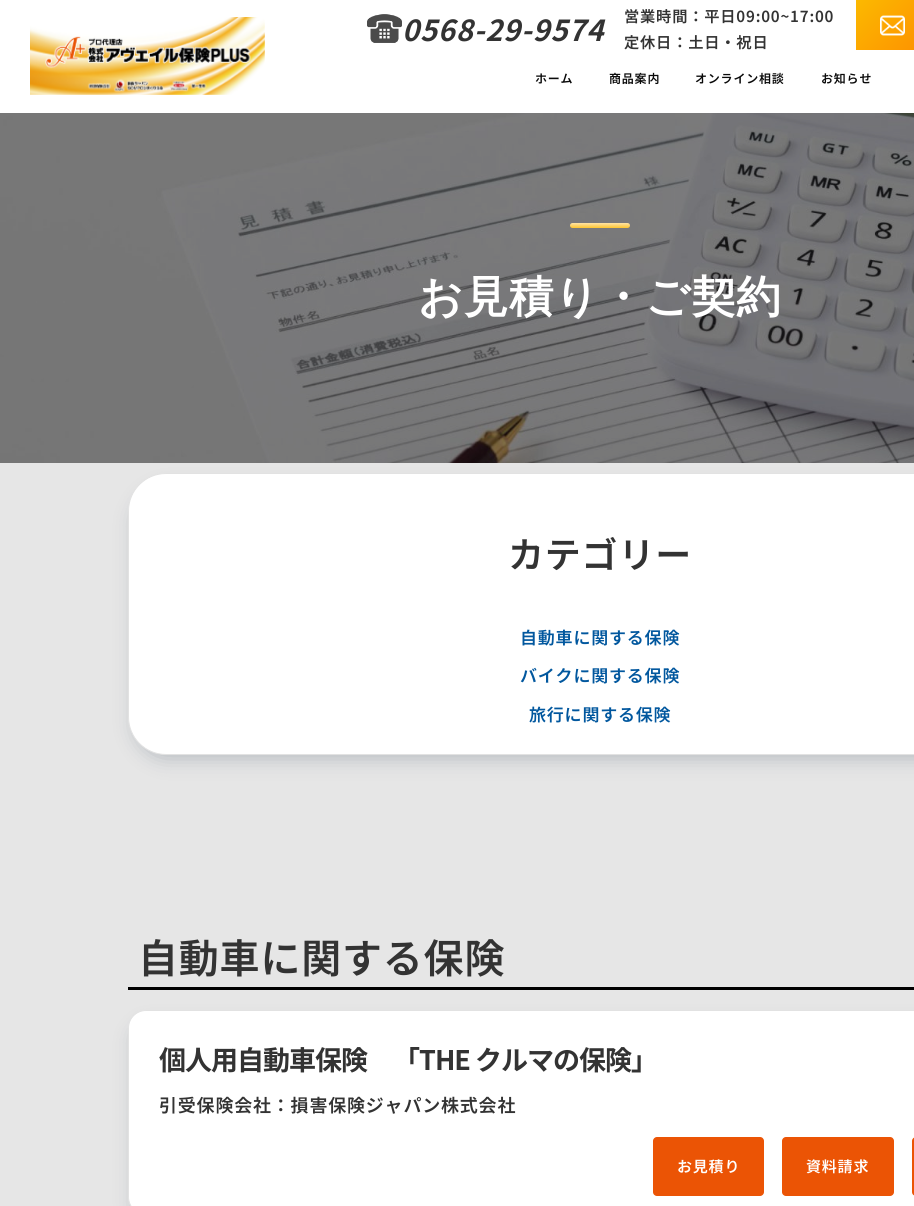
import math
import cairo

surface = cairo.ImageSurface(cairo.FORMAT_RGB24, 914, 1206)
ctx = cairo.Context(surface)
options = cairo.FontOptions()
options.set_hint_metrics(cairo.HINT_METRICS_OFF)
options.set_hint_style(cairo.HINT_STYLE_NONE)
ctx.set_font_options(options)
ctx.set_miter_limit(4)


def set_color(code):
    ctx.set_source_rgb(*(v / 255 for v in bytes.fromhex(code[-6:])))


def draw_spaced(x, y, s, letter, word):
    ctx.move_to(x, y)
    for ch in s:
        ctx.show_text(ch)
        ctx.rel_move_to(letter + word * (ch == ' '), 0)


def fill_rect(x, y, w, h, color):
    set_color(color)
    ctx.rectangle(x, y, w, h)
    ctx.fill()


def rounded_rect(x, y, w, h, r):
    ctx.new_sub_path()
    for i, (u, v) in enumerate([(x + w - r, y + h - r), (x + r, y + h - r), (x + r, y + r), (x + w - r, y + r)]):
        ctx.arc(u, v, r, i * math.pi / 2, (i + 1) * math.pi / 2)
    ctx.close_path()


def draw_shadow(x, y, w, h, r, blur, alpha):
    ctx.push_group_with_content(cairo.CONTENT_ALPHA)
    ctx.set_operator(cairo.OPERATOR_SOURCE)
    for i in range(15, -16, -2):
        e = blur * i / 6
        if min(w, h) + 2 * e > 0:
            ctx.set_source_rgba(0, 0, 0, alpha * math.erfc((i - 1) / 8.5) / 2)
            rounded_rect(x - e, y - e, w + 2 * e, h + 2 * e, max(0, min(r + e + blur * .6, min(w, h) / 2 + e)))
            ctx.fill()
    ctx.mask(ctx.pop_group())


def draw_image(path, x, y, w, h):
    ctx.save()
    ctx.set_source_surface(cairo.ImageSurface.create_from_png(path), x, y)
    ctx.rectangle(x, y, w, h)
    ctx.fill()
    ctx.restore()


set_color("#e6e6e6")
ctx.paint()
fill_rect(0, 0, 914, 113, "#ffffff")
draw_image("assets/img1.png", 30, 17, 235, 78)
draw_image("assets/img2.png", 367, 14, 35, 29)
ctx.select_font_face("Noto Sans JP", cairo.FONT_SLANT_ITALIC, cairo.FONT_WEIGHT_BOLD)
ctx.set_font_size(29)
set_color("#333333")
draw_spaced(402, 41, "0568-29-9574", 0.8, 0)
ctx.select_font_face("Noto Sans JP SemiBold")
ctx.set_font_size(15.25)
draw_spaced(624, 22, "営業時間：平日09:00~17:00", 0.8, 0)
draw_spaced(624, 48, "定休日：土日・祝日", 0.8, 0)
gradient = cairo.LinearGradient(891, -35, 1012, 85)
gradient.add_color_stop_rgba(0, 0.988, 0.725, 0, 1)
gradient.add_color_stop_rgba(1, 1, 0.412, 0, 1)
ctx.set_source(gradient)
ctx.rectangle(856, 0, 58, 50)
ctx.fill()
draw_image("assets/img3.png", 880, 15, 25, 21)
ctx.set_font_size(12)
set_color("#0a0a0a")
draw_spaced(535, 83, "ホーム", 0.8, 0)
draw_spaced(609, 83, "商品案内", 0.8, 0)
draw_spaced(695, 83, "オンライン相談", 0.8, 0)
draw_spaced(821, 83, "お知らせ", 0.8, 0)
draw_image("assets/img4.png", 0, 113, 914, 350)
gradient = cairo.LinearGradient(600, 221, 600, 230)
gradient.add_color_stop_rgba(0, 1, 0.937, 0.839, 1)
gradient.add_color_stop_rgba(1, 0.988, 0.725, 0, 1)
ctx.set_source(gradient)
rounded_rect(570, 223, 60, 5, 2.5)
ctx.fill()
ctx.select_font_face("WenQuanYi Zen Hei", cairo.FONT_SLANT_NORMAL, cairo.FONT_WEIGHT_BOLD)
ctx.set_font_size(44.25)
set_color("#ffffff")
draw_spaced(418, 312, "お見積り・ご契約", 0.8, 0)
set_color("#001932")
draw_shadow(134, 489, 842, 270, 32, 10, 0.2)
set_color("#ffffff")
rounded_rect(128.5, 473.5, 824, 281, 37.5)
ctx.fill_preserve()
set_color("#e2e2e2")
ctx.set_line_width(1)
ctx.stroke()
ctx.select_font_face("Noto Sans JP SemiBold")
ctx.set_font_size(36)
set_color("#333333")
draw_spaced(508, 568, "カテゴリー", 0.8, 0)
ctx.set_font_size(17)
set_color("#01579e")
draw_spaced(520, 644, "自動車に関する保険", 0.8, 0)
draw_spaced(520, 682, "バイクに関する保険", 0.8, 0)
draw_spaced(529, 721, "旅行に関する保険", 0.8, 0)
fill_rect(128, 987, 786, 3, "#000000")
ctx.set_font_size(40)
set_color("#333333")
draw_spaced(138, 973, "自動車に関する保険", 0.8, 0)
set_color("#001932")
draw_shadow(134, 1026, 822, 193, 12, 10, 0.2)
set_color("#ffffff")
rounded_rect(128.5, 1010.5, 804, 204, 17.5)
ctx.fill_preserve()
set_color("#e2e2e2")
ctx.stroke()
ctx.select_font_face("Noto Sans JP", cairo.FONT_SLANT_NORMAL, cairo.FONT_WEIGHT_BOLD)
ctx.set_font_size(27)
set_color("#333333")
draw_spaced(159, 1070, "個人用自動車保険　「THE クルマの保険」", -1, 0)
ctx.select_font_face("Noto Sans JP SemiBold")
ctx.set_font_size(18)
draw_spaced(159, 1112, "引受保険会社：損害保険ジャパン株式会社", 0.8, 0)
set_color("#eb5405")
rounded_rect(653, 1137, 111, 59, 4)
ctx.fill()
ctx.set_font_size(15)
set_color("#ffffff")
draw_spaced(677, 1172, "お見積り", 0.8, 0)
set_color("#eb5405")
rounded_rect(782, 1137, 112, 59, 4)
ctx.fill()
set_color("#ffffff")
draw_spaced(806, 1172, "資料請求", 0.8, 0)
set_color("#eb5405")
rounded_rect(912, 1137, 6, 59, 4)
ctx.fill()
surface.write_to_png("output.png")
